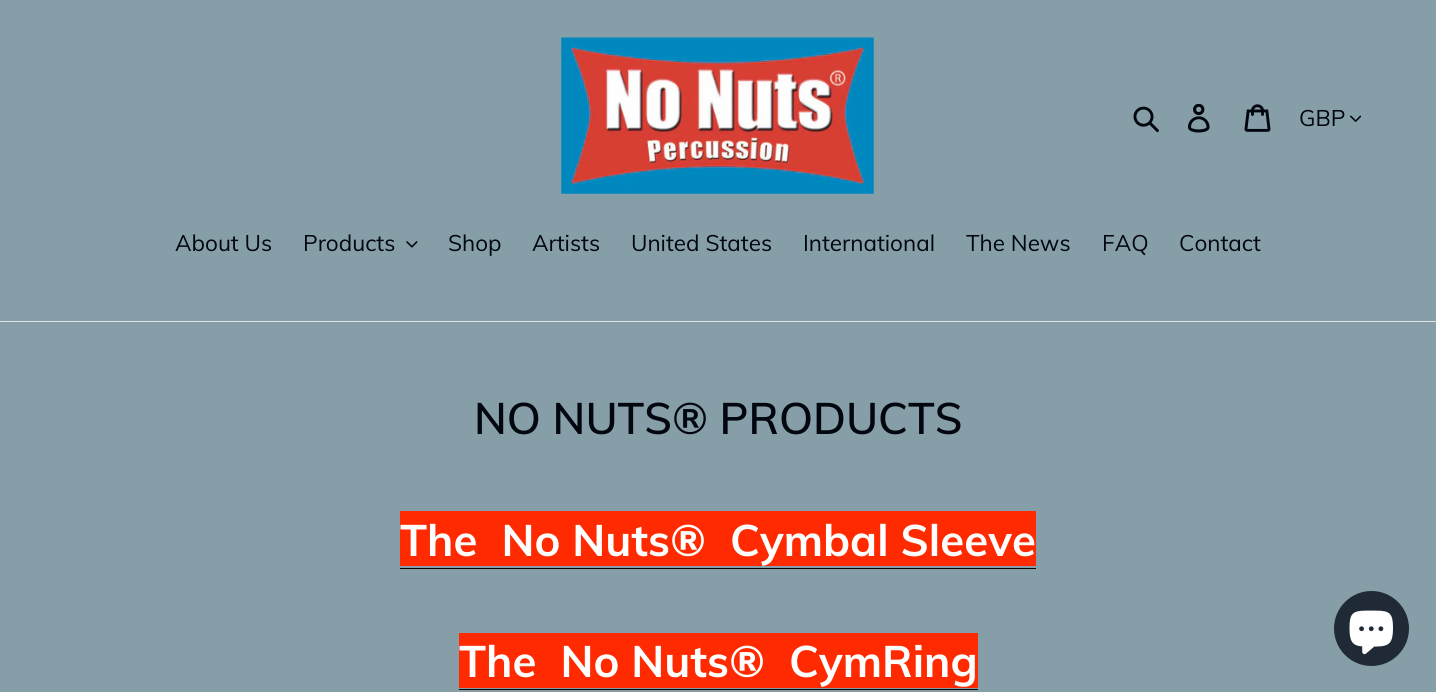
import math
import cairo

surface = cairo.ImageSurface(cairo.FORMAT_RGB24, 1436, 692)
ctx = cairo.Context(surface)
options = cairo.FontOptions()
options.set_hint_metrics(cairo.HINT_METRICS_OFF)
options.set_hint_style(cairo.HINT_STYLE_NONE)
ctx.set_font_options(options)
ctx.set_miter_limit(4)


def set_color(code):
    ctx.set_source_rgb(*(v / 255 for v in bytes.fromhex(code[-6:])))


def draw_text(x, y, s, family, size, color, bold=False, italic=False):
    ctx.select_font_face(family, cairo.FONT_SLANT_ITALIC if italic else cairo.FONT_SLANT_NORMAL, cairo.FONT_WEIGHT_BOLD if bold else cairo.FONT_WEIGHT_NORMAL)
    ctx.set_font_size(size)
    set_color(color)
    ctx.move_to(x, y)
    ctx.show_text(s)


def fill_rect(x, y, w, h, color):
    set_color(color)
    ctx.rectangle(x, y, w, h)
    ctx.fill()


def draw_image(path, x, y, w, h):
    ctx.save()
    ctx.set_source_surface(cairo.ImageSurface.create_from_png(path), x, y)
    ctx.rectangle(x, y, w, h)
    ctx.fill()
    ctx.restore()


set_color("#869ea7")
ctx.paint()
draw_image("assets/img1.png", 561, 37, 313, 157)
draw_image("assets/img2.png", 1133, 106, 26, 27)
draw_image("assets/img3.png", 1188, 104, 22, 29)
draw_image("assets/img4.png", 1244, 104, 27, 28)
draw_text(1299, 126, "GBP", "Muli", 22.5, "#01060f")
draw_image("assets/img5.png", 1350, 115, 11, 7)
fill_rect(0, 321, 1436, 1, "#e4e4e4")
draw_text(175, 251, "About Us", "Muli", 22.5, "#01060f")
draw_text(303, 251, "Products", "Muli", 22.5, "#01060f")
draw_image("assets/img6.png", 406, 241, 12, 7)
draw_text(448, 251, "Shop", "Muli", 22.5, "#01060f")
draw_text(532, 251, "Artists", "Muli", 22.5, "#01060f")
draw_text(631, 251, "United States", "Muli", 22.5, "#01060f")
draw_text(803, 251, "International", "Muli", 22.5, "#01060f")
draw_text(966, 251, "The News", "Muli", 22.5, "#01060f")
draw_text(1102, 251, "FAQ", "Muli", 22.5, "#01060f")
draw_text(1179, 251, "Contact", "Muli", 22.5, "#01060f")
draw_text(474, 434, "NO NUTS® PRODUCTS", "Muli SemiBold", 43.75, "#01060f")
fill_rect(400, 511, 636, 55, "#ff2a00")
draw_text(400, 556, "The  No Nuts®  Cymbal Sleeve", "Muli", 43.75, "#ffffff", bold=True)
fill_rect(400, 568, 636, 1, "#050202")
fill_rect(459, 633, 519, 55, "#ff2a00")
draw_text(459, 677, "The  No Nuts®  CymRing", "Muli", 43.75, "#ffffff", bold=True)
fill_rect(459, 689, 519, 1, "#050202")
set_color("#202a36")
ctx.new_path()
ctx.arc(1371.5, 628.5, 37.5, 0, 2 * math.pi)
ctx.fill()
draw_image("assets/img7.png", 1349, 610, 44, 45)
surface.write_to_png("output.png")
